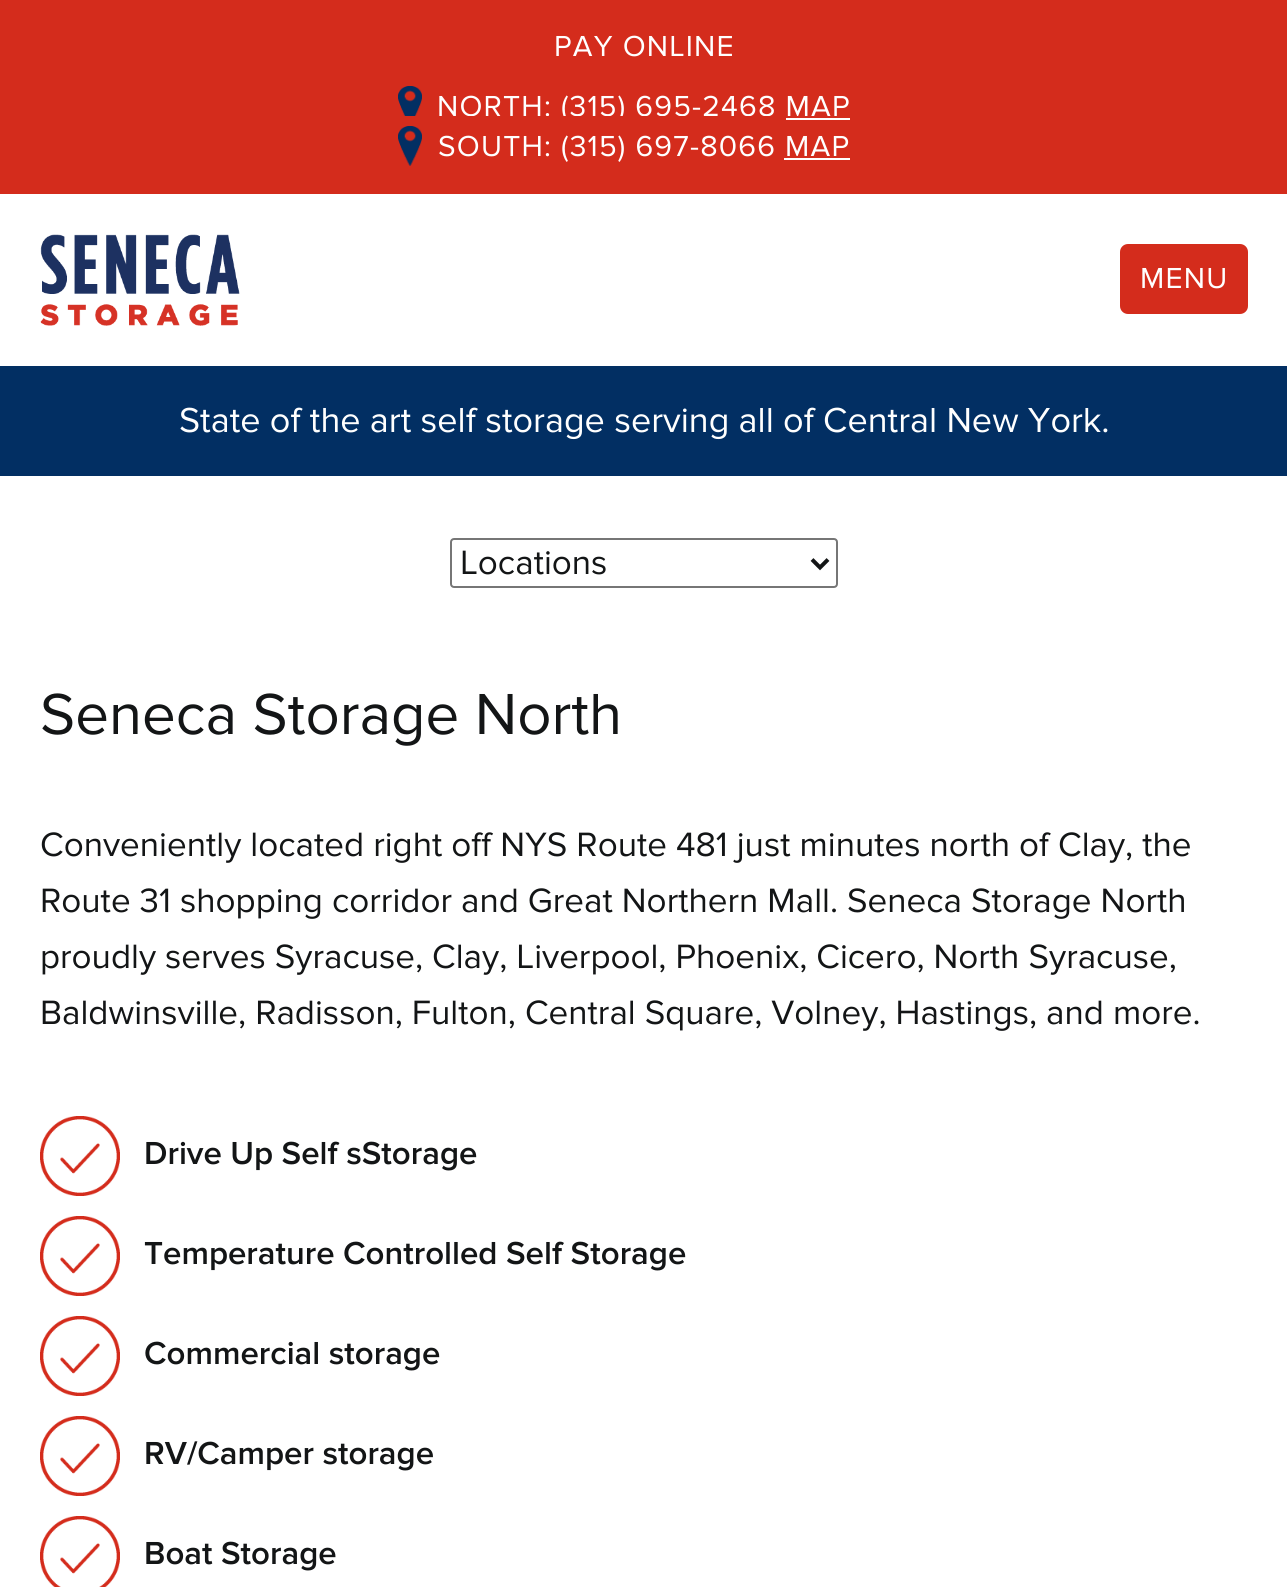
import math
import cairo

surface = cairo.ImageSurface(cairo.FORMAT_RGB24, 1287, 1587)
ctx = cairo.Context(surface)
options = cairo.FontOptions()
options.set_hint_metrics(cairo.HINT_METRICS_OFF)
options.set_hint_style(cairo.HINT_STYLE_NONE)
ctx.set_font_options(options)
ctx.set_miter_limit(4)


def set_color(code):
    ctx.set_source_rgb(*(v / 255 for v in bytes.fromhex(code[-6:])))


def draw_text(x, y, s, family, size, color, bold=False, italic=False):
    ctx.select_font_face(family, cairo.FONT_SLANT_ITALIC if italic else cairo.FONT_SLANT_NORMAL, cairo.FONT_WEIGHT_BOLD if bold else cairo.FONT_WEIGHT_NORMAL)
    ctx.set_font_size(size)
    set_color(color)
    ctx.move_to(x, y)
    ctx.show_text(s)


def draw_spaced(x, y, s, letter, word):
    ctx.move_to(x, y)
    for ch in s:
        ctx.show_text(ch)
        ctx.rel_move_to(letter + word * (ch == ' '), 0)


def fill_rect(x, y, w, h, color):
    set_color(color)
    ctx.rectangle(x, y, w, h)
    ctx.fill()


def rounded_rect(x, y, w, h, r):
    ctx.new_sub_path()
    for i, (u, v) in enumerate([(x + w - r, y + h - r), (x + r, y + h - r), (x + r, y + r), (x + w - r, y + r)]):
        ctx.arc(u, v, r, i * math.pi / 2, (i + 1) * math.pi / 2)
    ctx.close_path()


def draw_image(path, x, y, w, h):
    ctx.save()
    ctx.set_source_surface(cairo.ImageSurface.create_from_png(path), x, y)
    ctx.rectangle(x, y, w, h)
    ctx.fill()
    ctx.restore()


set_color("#ffffff")
ctx.paint()
fill_rect(0, 0, 1287, 194, "#d42c1c")
ctx.select_font_face("Proxima Nova")
ctx.set_font_size(30)
set_color("#ffffff")
draw_spaced(554, 56, "PAY ONLINE", 1.2, 0)
draw_image("assets/img1.png", 398, 86, 24, 30)
draw_spaced(437, 116, "NORTH: (315) 695-2468 MAP", 1.2, 0)
fill_rect(786, 118, 64, 2, "#ffffff")
draw_image("assets/img2.png", 398, 126, 24, 40)
draw_spaced(438, 156, "SOUTH: (315) 697-8066 MAP", 1.2, 0)
fill_rect(468, 116, 302, 6, "#d42c1c")
fill_rect(784, 158, 66, 2, "#ffffff")
set_color("#d42c1c")
rounded_rect(1120, 244, 128, 70, 8)
ctx.fill()
set_color("#ffffff")
draw_spaced(1140, 288, "MENU", 1.2, 0)
draw_image("assets/img3.png", 40, 234, 200, 92)
fill_rect(0, 366, 1287, 110, "#022f63")
draw_text(179, 432, "State of the art self storage serving all of Central New York.", "Proxima Nova", 36, "#ffffff")
rounded_rect(451, 539, 386, 48, 3)
set_color("#767676")
ctx.stroke()
ctx.new_path()
ctx.move_to(812, 559.5)
ctx.line_to(820, 567.5)
ctx.line_to(828, 559.5)
set_color("#131516")
ctx.set_line_width(4)
ctx.stroke()
draw_text(460, 574, "Locations", "Proxima Nova", 35, "#131516")
draw_text(40, 734, "Seneca Storage North", "Proxima Nova", 60, "#131516")
draw_text(40, 856, "Conveniently located right off NYS Route 481 just minutes north of Clay, the", "Proxima Nova", 35, "#131516")
draw_text(40, 912, "Route 31 shopping corridor and Great Northern Mall. Seneca Storage North", "Proxima Nova", 35, "#131516")
draw_text(40, 968, "proudly serves Syracuse, Clay, Liverpool, Phoenix, Cicero, North Syracuse,", "Proxima Nova", 35, "#131516")
draw_text(40, 1024, "Baldwinsville, Radisson, Fulton, Central Square, Volney, Hastings, and more.", "Proxima Nova", 35, "#131516")
draw_image("assets/img4.png", 40, 1116, 80, 80)
draw_text(144, 1164, "Drive Up Self sStorage", "Proxima Nova SemiBold", 33, "#131516")
draw_image("assets/img4.png", 40, 1216, 80, 80)
draw_text(144, 1264, "Temperature Controlled Self Storage", "Proxima Nova SemiBold", 33, "#131516")
draw_image("assets/img4.png", 40, 1316, 80, 80)
draw_text(144, 1364, "Commercial storage", "Proxima Nova SemiBold", 33, "#131516")
draw_image("assets/img4.png", 40, 1416, 80, 80)
draw_text(144, 1464, "RV/Camper storage", "Proxima Nova SemiBold", 33, "#131516")
draw_image("assets/img5.png", 40, 1516, 80, 71)
draw_text(144, 1564, "Boat Storage", "Proxima Nova SemiBold", 33, "#131516")
surface.write_to_png("output.png")
